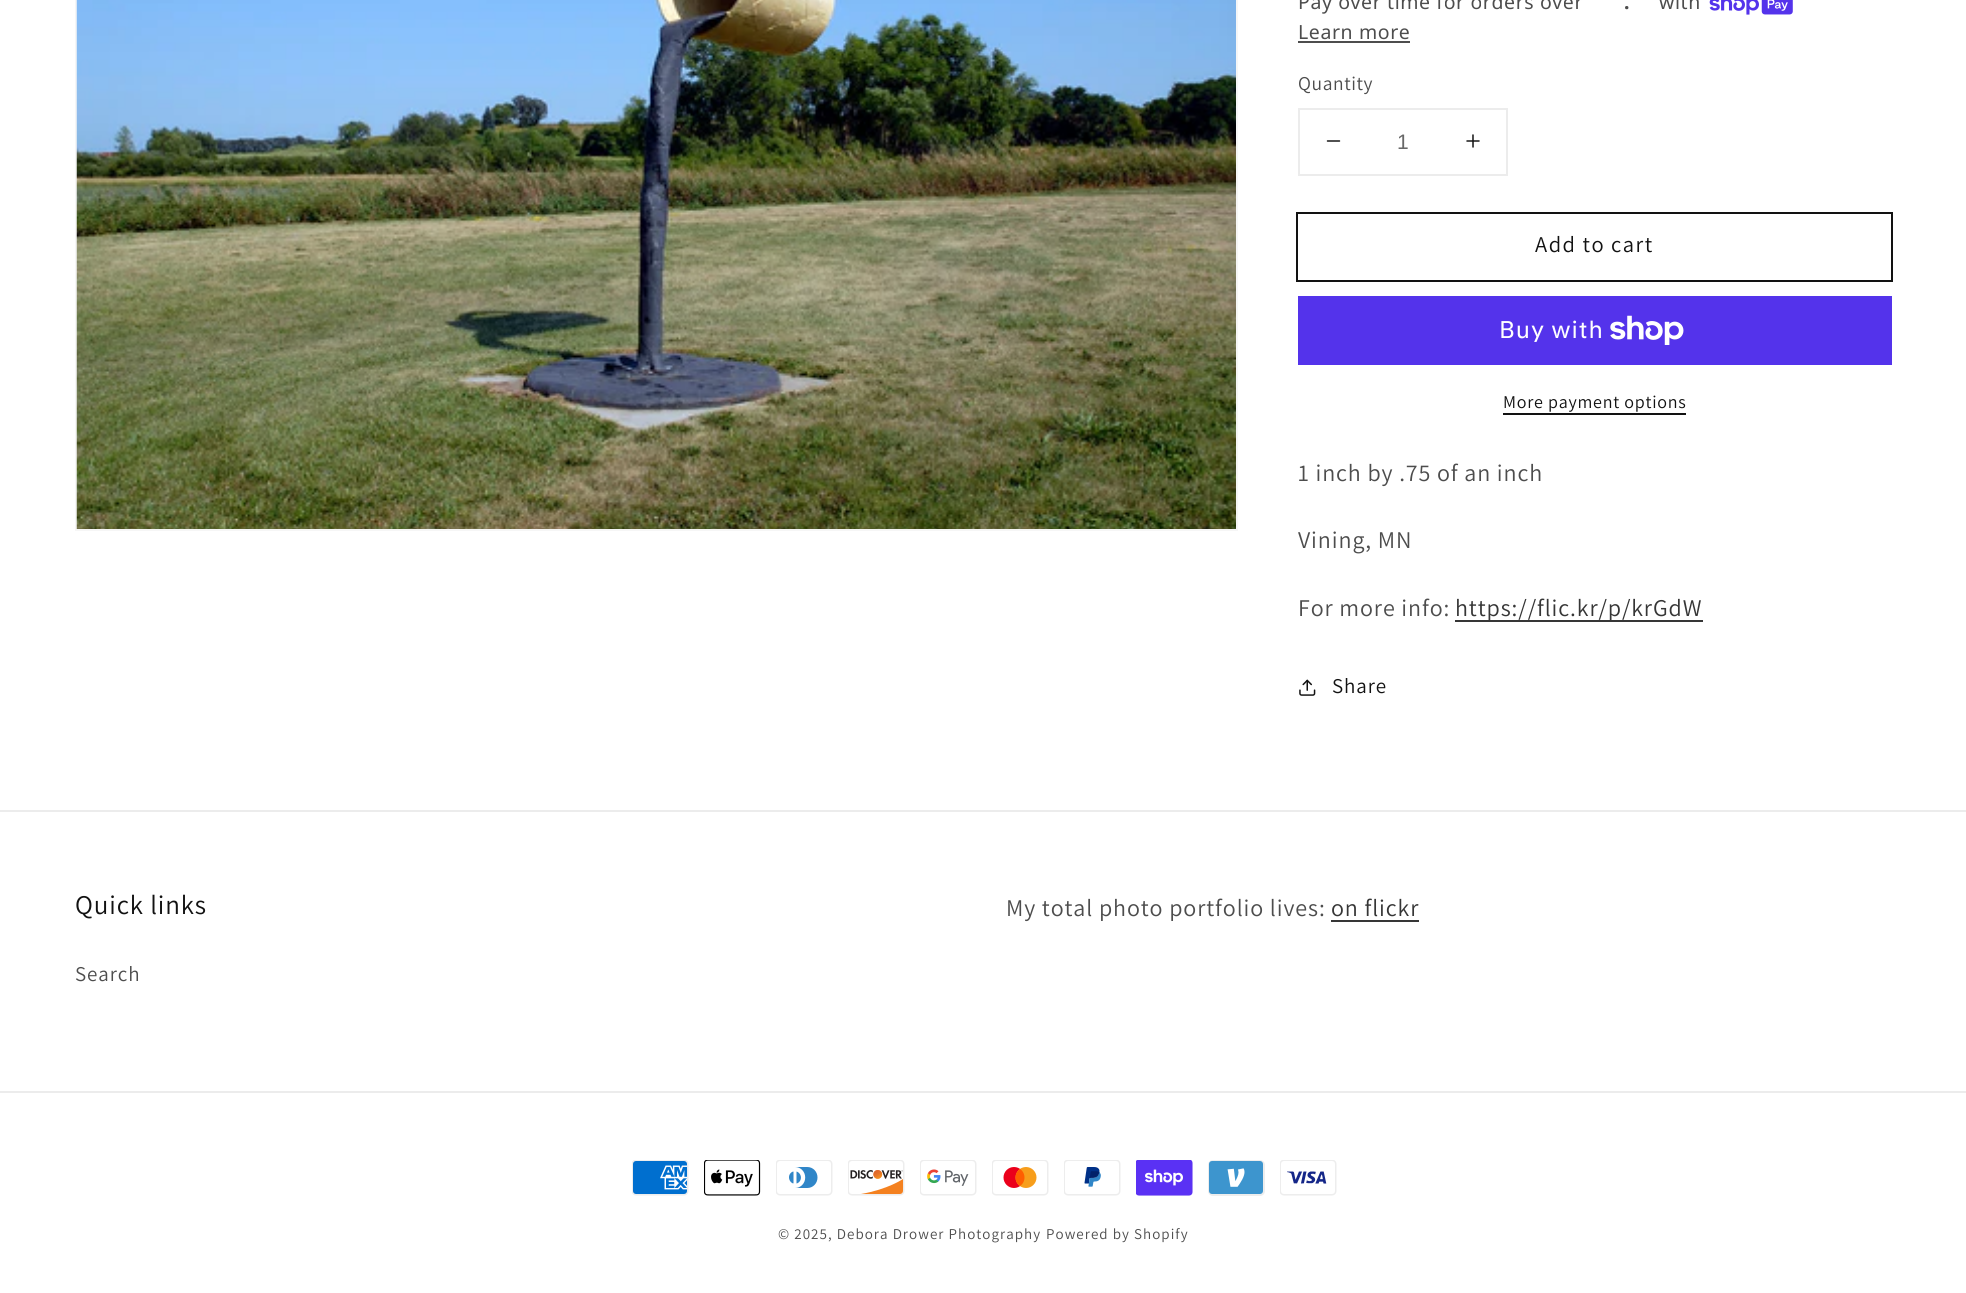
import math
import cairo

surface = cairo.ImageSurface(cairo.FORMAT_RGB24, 1966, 1293)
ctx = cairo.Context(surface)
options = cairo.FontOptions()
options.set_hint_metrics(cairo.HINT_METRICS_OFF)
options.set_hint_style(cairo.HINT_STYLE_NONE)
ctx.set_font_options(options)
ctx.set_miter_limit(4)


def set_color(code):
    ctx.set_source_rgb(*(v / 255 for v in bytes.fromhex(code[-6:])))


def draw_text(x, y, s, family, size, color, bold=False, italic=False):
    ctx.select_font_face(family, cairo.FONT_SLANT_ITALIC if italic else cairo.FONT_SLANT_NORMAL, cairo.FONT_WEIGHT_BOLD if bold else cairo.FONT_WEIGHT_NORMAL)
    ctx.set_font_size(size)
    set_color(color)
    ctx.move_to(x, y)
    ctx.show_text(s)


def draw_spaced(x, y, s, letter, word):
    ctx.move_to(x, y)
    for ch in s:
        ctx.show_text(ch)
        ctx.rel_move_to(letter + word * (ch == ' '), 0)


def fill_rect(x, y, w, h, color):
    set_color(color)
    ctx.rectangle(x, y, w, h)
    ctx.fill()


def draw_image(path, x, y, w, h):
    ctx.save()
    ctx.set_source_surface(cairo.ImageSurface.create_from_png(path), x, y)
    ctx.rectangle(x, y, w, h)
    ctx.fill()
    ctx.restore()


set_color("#ffffff")
ctx.paint()
ctx.rectangle(76, -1, 1161, 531)
set_color("#f6f6f6")
ctx.stroke()
draw_image("assets/img1.png", 76, 0, 1160, 529)
ctx.select_font_face("Noto Sans")
ctx.set_font_size(19.5)
set_color("#4d4d4d")
draw_spaced(1298, 9, "Pay over time for orders over", 0.6, 0)
ctx.select_font_face("Noto Sans", cairo.FONT_SLANT_NORMAL, cairo.FONT_WEIGHT_BOLD)
draw_spaced(1624, 9, ".", 0.6, 0)
ctx.select_font_face("Noto Sans")
draw_spaced(1659, 9, "with", 0.6, 0)
draw_image("assets/img2.png", 1709, 0, 84, 15)
draw_spaced(1298, 39, "Learn more", 0.6, 0)
fill_rect(1298, 41, 112, 2, "#4d4d4d")
ctx.select_font_face("Assistant")
draw_spaced(1298, 90, "Quantity", 0.6, 0)
ctx.rectangle(1299, 109, 208, 66)
set_color("#ececec")
ctx.stroke()
draw_image("assets/img3.png", 1326, 140, 15, 2)
draw_text(1397, 149, "1", "Liberation Sans", 21, "#686868")
draw_image("assets/img4.png", 1466, 134, 14, 14)
ctx.rectangle(1297, 213, 595, 68)
set_color("#121212")
ctx.stroke()
ctx.select_font_face("Assistant")
ctx.set_font_size(22.5)
draw_spaced(1535, 252, "Add to cart", 1.5, 0)
fill_rect(1298, 296, 594, 69, "#5433eb")
ctx.select_font_face("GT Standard")
ctx.set_font_size(24)
set_color("#ffffff")
draw_spaced(1499, 338, "Buy with", 0.9, 0)
draw_image("assets/img5.png", 1610, 315, 74, 30)
ctx.select_font_face("Assistant")
ctx.set_font_size(18)
set_color("#121212")
draw_spaced(1503, 408, "More payment options", 0.75, 0)
fill_rect(1503, 413, 183, 2, "#121212")
ctx.set_font_size(24)
set_color("#4d4d4d")
draw_spaced(1298, 481, "1 inch by .75 of an inch", 0.9, 0)
draw_spaced(1298, 548, "Vining, MN", 0.9, 0)
draw_spaced(1298, 616, "For more info:", 0.9, 0)
fill_rect(1455, 620, 248, 2, "#363636")
draw_spaced(1455, 616, "https://flic.kr/p/krGdW", 0.9, 0)
draw_image("assets/img6.png", 1299, 679, 17, 17)
ctx.set_font_size(21)
set_color("#121212")
draw_spaced(1332, 693, "Share", 0.9, 0)
fill_rect(0, 810, 1966, 2, "#ececec")
ctx.set_font_size(27)
set_color("#121212")
draw_spaced(75, 914, "Quick links", 0.9, 0)
ctx.set_font_size(21)
set_color("#4d4d4d")
draw_spaced(75, 981, "Search", 0.9, 0)
ctx.set_font_size(24)
draw_spaced(1006, 916, "My total photo portfolio lives:", 0.9, 0)
set_color("#363636")
draw_spaced(1331, 916, "on flickr", 0.9, 0)
fill_rect(1331, 920, 88, 2, "#363636")
fill_rect(0, 1091, 1966, 2, "#ececec")
draw_image("assets/img7.png", 632, 1160, 57, 36)
draw_image("assets/img8.png", 704, 1160, 57, 36)
draw_image("assets/img9.png", 776, 1160, 57, 36)
draw_image("assets/img10.png", 848, 1160, 57, 36)
draw_image("assets/img11.png", 920, 1160, 57, 36)
draw_image("assets/img12.png", 992, 1160, 57, 36)
draw_image("assets/img13.png", 1064, 1160, 57, 36)
draw_image("assets/img14.png", 1136, 1160, 57, 36)
draw_image("assets/img15.png", 1208, 1160, 57, 36)
draw_image("assets/img16.png", 1280, 1160, 57, 36)
ctx.set_font_size(15)
set_color("#4d4d4d")
draw_spaced(778, 1239, "© 2025, Debora Drower Photography", 1.05, 0)
draw_spaced(1046, 1239, "Powered by Shopify", 1.05, 0)
surface.write_to_png("output.png")
